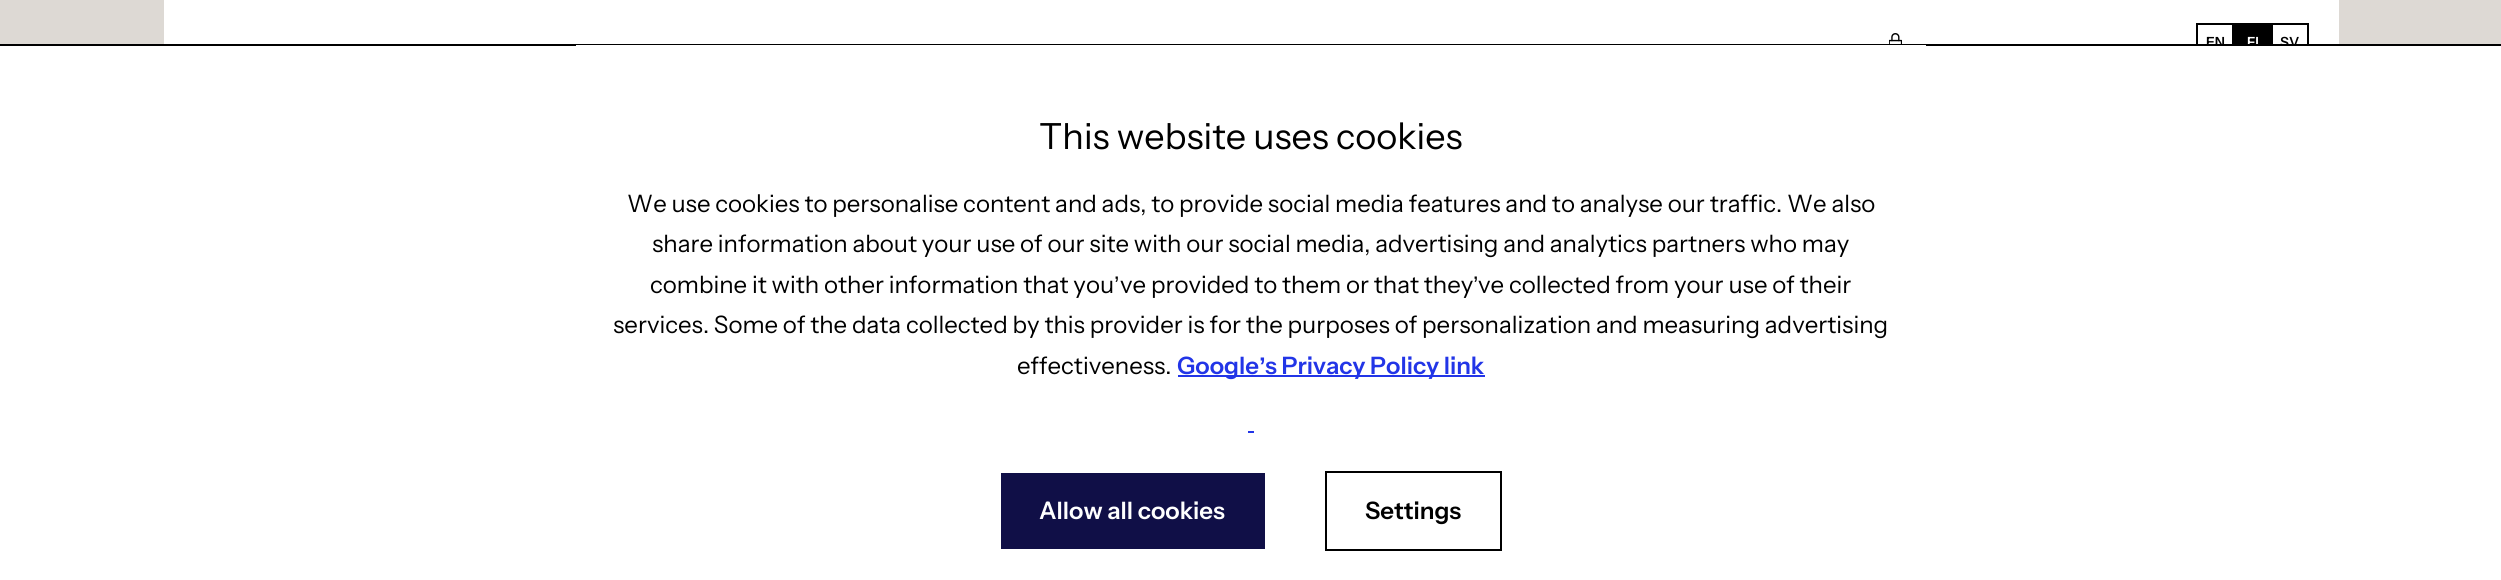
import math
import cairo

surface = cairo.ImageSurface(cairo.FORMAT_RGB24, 2501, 580)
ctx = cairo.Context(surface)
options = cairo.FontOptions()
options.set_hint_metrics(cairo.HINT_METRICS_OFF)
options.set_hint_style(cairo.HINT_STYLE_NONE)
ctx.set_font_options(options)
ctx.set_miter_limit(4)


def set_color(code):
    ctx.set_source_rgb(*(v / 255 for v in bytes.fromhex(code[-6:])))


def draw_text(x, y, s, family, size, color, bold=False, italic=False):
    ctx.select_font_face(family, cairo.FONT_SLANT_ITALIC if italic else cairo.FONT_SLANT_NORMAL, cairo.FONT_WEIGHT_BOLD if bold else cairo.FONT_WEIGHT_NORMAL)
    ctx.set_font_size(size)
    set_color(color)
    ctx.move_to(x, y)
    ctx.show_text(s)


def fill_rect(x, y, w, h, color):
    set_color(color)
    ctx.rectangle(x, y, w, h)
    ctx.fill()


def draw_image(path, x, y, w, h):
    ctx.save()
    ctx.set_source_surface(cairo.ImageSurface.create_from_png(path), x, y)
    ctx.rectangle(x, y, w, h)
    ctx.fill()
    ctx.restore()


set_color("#ddd9d4")
ctx.paint()
fill_rect(164, 0, 2175, 44, "#ffffff")
draw_image("assets/img1.png", 1889, 33, 13, 11)
ctx.rectangle(2197, 24, 36, 35)
set_color("#000000")
ctx.stroke()
draw_text(2206, 47, "EN", "Instrument Sans SemiBold", 14, "#000000")
fill_rect(2234, 23, 37, 21, "#000000")
draw_text(2247, 47, "FI", "Instrument Sans SemiBold", 14, "#ffffff")
ctx.rectangle(2272, 24, 36, 35)
set_color("#000000")
ctx.stroke()
draw_text(2280, 47, "SV", "Instrument Sans SemiBold", 14, "#000000")
fill_rect(0, 46, 2501, 534, "#ffffff")
fill_rect(0, 44, 2501, 2, "#000000")
fill_rect(576, 45, 1350, 1, "#ffffff")
draw_text(1039, 149, "This website uses cookies", "Instrument Sans", 36, "#000000")
draw_text(627, 212, "We use cookies to personalise content and ads, to provide social media features and to analyse our traffic. We also", "Instrument Sans", 24, "#000000")
draw_text(652, 252, "share information about your use of our site with our social media, advertising and analytics partners who may", "Instrument Sans", 24, "#000000")
draw_text(650, 293, "combine it with other information that you", "Instrument Sans", 24, "#000000")
draw_text(1114, 293, "’", "Liberation Sans", 24, "#000000")
draw_text(1120, 293, "ve provided to them or that they", "Instrument Sans", 24, "#000000")
draw_text(1473, 293, "’", "Liberation Sans", 24, "#000000")
draw_text(1478, 293, "ve collected from your use of their", "Instrument Sans", 24, "#000000")
draw_text(613, 333, "services. Some of the data collected by this provider is for the purposes of personalization and measuring advertising", "Instrument Sans", 24, "#000000")
draw_text(1017, 374, "effectiveness.", "Instrument Sans", 24, "#000000")
fill_rect(1178, 375, 307, 2, "#2235e7")
draw_text(1177, 374, "Google", "Instrument Sans SemiBold", 24, "#2235e7")
draw_text(1259, 374, "’", "Liberation Sans", 24, "#2235e7", bold=True)
draw_text(1265, 374, "s Privacy Policy link", "Instrument Sans SemiBold", 24, "#2235e7")
fill_rect(1248, 431, 6, 2, "#2235e7")
fill_rect(1001, 473, 264, 76, "#100f47")
draw_text(1039, 519, "Allow all cookies", "Instrument Sans SemiBold", 24, "#ffffff")
ctx.rectangle(1326, 472, 175, 78)
set_color("#000000")
ctx.stroke()
draw_text(1365, 519, "Settings", "Instrument Sans SemiBold", 24, "#000000")
surface.write_to_png("output.png")
